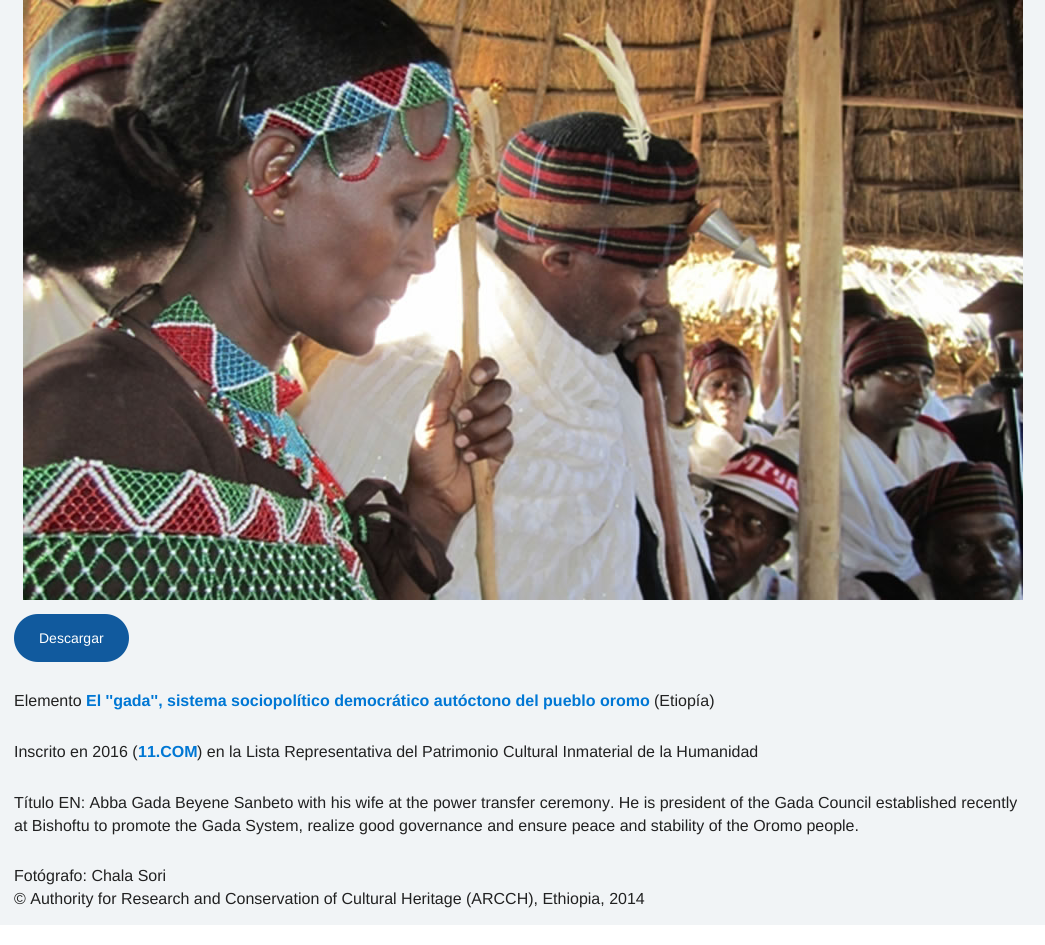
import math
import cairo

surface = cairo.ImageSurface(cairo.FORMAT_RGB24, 1045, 945)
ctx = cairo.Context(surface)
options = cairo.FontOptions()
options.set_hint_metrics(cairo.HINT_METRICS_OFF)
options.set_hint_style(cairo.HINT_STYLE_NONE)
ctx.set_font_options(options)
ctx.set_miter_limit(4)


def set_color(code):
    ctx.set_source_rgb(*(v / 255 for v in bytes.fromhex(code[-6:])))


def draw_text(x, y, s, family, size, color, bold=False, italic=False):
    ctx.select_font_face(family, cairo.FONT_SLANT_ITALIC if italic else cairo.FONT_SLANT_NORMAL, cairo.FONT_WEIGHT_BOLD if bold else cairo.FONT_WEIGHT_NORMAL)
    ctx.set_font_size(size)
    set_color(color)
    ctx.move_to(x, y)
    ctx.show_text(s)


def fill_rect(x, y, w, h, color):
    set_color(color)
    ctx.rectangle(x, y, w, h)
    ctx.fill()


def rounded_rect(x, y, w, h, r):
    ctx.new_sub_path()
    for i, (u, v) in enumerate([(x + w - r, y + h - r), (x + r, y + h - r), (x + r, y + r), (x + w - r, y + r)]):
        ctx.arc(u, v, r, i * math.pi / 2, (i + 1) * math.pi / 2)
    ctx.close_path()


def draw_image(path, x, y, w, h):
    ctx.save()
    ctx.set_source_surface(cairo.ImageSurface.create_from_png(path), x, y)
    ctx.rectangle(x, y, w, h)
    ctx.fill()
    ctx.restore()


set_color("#ffffff")
ctx.paint()
fill_rect(0, 0, 1045, 925, "#f1f4f6")
draw_image("assets/img1.png", 23, 0, 1000, 600)
set_color("#115a9e")
rounded_rect(14, 614, 115, 48, 24)
ctx.fill()
draw_text(39, 643, "Descargar", "Liberation Sans", 14, "#ffffff")
draw_text(14, 706, "Elemento", "Liberation Sans", 16, "#212121")
draw_text(86, 706, "El ''gada'', sistema sociopolítico democrático autóctono del pueblo oromo", "Liberation Sans", 16, "#0077d4", bold=True)
draw_text(654, 706, "(Etiopía)", "Liberation Sans", 16, "#212121")
draw_text(14, 757, "Inscrito en 2016 (", "Liberation Sans", 16, "#212121")
draw_text(138, 757, "11.COM", "Liberation Sans", 16, "#0077d4", bold=True)
draw_text(197, 757, ") en la Lista Representativa del Patrimonio Cultural Inmaterial de la Humanidad", "Liberation Sans", 16, "#212121")
draw_text(14, 808, "Título EN: Abba Gada Beyene Sanbeto with his wife at the power transfer ceremony. He is president of the Gada Council established recently", "Liberation Sans", 16, "#212121")
draw_text(14, 831, "at Bishoftu to promote the Gada System, realize good governance and ensure peace and stability of the Oromo people.", "Liberation Sans", 16, "#212121")
draw_text(14, 881, "Fotógrafo: Chala Sori", "Liberation Sans", 16, "#212121")
draw_text(14, 904, "© Authority for Research and Conservation of Cultural Heritage (ARCCH), Ethiopia, 2014", "Liberation Sans", 16, "#212121")
surface.write_to_png("output.png")
